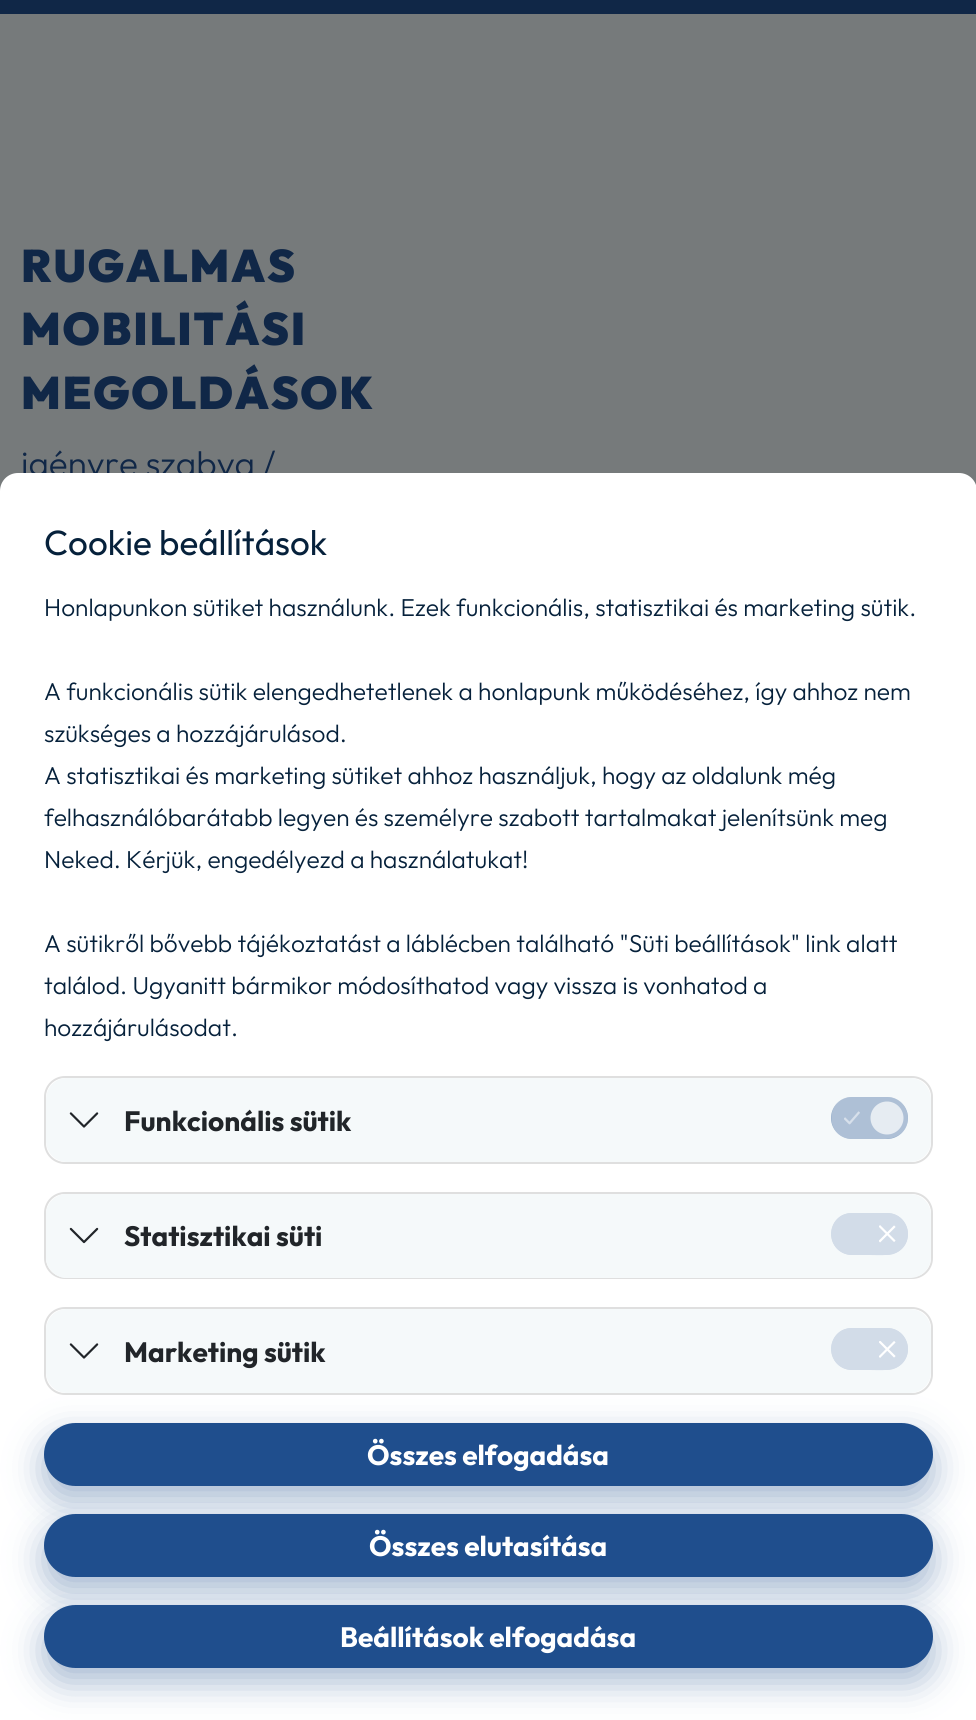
import math
import cairo

surface = cairo.ImageSurface(cairo.FORMAT_RGB24, 976, 1720)
ctx = cairo.Context(surface)
options = cairo.FontOptions()
options.set_hint_metrics(cairo.HINT_METRICS_OFF)
options.set_hint_style(cairo.HINT_STYLE_NONE)
ctx.set_font_options(options)
ctx.set_miter_limit(4)


def set_color(code):
    ctx.set_source_rgb(*(v / 255 for v in bytes.fromhex(code[-6:])))


def draw_text(x, y, s, family, size, color, bold=False, italic=False):
    ctx.select_font_face(family, cairo.FONT_SLANT_ITALIC if italic else cairo.FONT_SLANT_NORMAL, cairo.FONT_WEIGHT_BOLD if bold else cairo.FONT_WEIGHT_NORMAL)
    ctx.set_font_size(size)
    set_color(color)
    ctx.move_to(x, y)
    ctx.show_text(s)


def draw_spaced(x, y, s, letter, word):
    ctx.move_to(x, y)
    for ch in s:
        ctx.show_text(ch)
        ctx.rel_move_to(letter + word * (ch == ' '), 0)


def fill_rect(x, y, w, h, color):
    set_color(color)
    ctx.rectangle(x, y, w, h)
    ctx.fill()


def rounded_rect(x, y, w, h, r):
    ctx.new_sub_path()
    for i, (u, v) in enumerate([(x + w - r, y + h - r), (x + r, y + h - r), (x + r, y + r), (x + w - r, y + r)]):
        ctx.arc(u, v, r, i * math.pi / 2, (i + 1) * math.pi / 2)
    ctx.close_path()


def draw_shadow(x, y, w, h, r, blur, alpha):
    ctx.push_group_with_content(cairo.CONTENT_ALPHA)
    ctx.set_operator(cairo.OPERATOR_SOURCE)
    for i in range(15, -16, -2):
        e = blur * i / 6
        if min(w, h) + 2 * e > 0:
            ctx.set_source_rgba(0, 0, 0, alpha * math.erfc((i - 1) / 8.5) / 2)
            rounded_rect(x - e, y - e, w + 2 * e, h + 2 * e, max(0, min(r + e + blur * .6, min(w, h) / 2 + e)))
            ctx.fill()
    ctx.mask(ctx.pop_group())


def draw_image(path, x, y, w, h):
    ctx.save()
    ctx.set_source_surface(cairo.ImageSurface.create_from_png(path), x, y)
    ctx.rectangle(x, y, w, h)
    ctx.fill()
    ctx.restore()


set_color("#102747")
ctx.paint()
fill_rect(0, 14, 976, 477, "#767a7b")
ctx.select_font_face("Outfit Black")
ctx.set_font_size(45.5)
set_color("#102747")
draw_spaced(21, 282, "RUGALMAS", 1.75, 0)
draw_spaced(21, 345, "MOBILITÁSI", 1.75, 0)
draw_spaced(21, 409, "MEGOLDÁSOK", 1.75, 0)
draw_text(21, 476, "igényre szabva /", "Outfit Light", 35, "#102747")
set_color("#ffffff")
ctx.new_path()
ctx.move_to(18, 473)
ctx.line_to(959, 473)
ctx.curve_to(969, 473, 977, 481, 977, 491)
ctx.line_to(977, 1720)
ctx.line_to(0, 1720)
ctx.line_to(0, 491)
ctx.curve_to(0, 481, 8, 473, 18, 473)
ctx.close_path()
ctx.fill()
draw_text(44, 555, "Cookie beállítások", "Outfit", 35, "#06213b")
draw_text(44, 616, "Honlapunkon sütiket használunk. Ezek funkcionális, statisztikai és marketing sütik.", "Outfit Light", 24.5, "#06213b")
draw_text(44, 700, "A funkcionális sütik elengedhetetlenek a honlapunk működéséhez, így ahhoz nem", "Outfit Light", 24.5, "#06213b")
draw_text(44, 742, "szükséges a hozzájárulásod.", "Outfit Light", 24.5, "#06213b")
draw_text(44, 784, "A statisztikai és marketing sütiket ahhoz használjuk, hogy az oldalunk még", "Outfit Light", 24.5, "#06213b")
draw_text(44, 826, "felhasználóbarátabb legyen és személyre szabott tartalmakat jelenítsünk meg", "Outfit Light", 24.5, "#06213b")
draw_text(44, 868, "Neked. Kérjük, engedélyezd a használatukat!", "Outfit Light", 24.5, "#06213b")
draw_text(44, 952, "A sütikről bővebb tájékoztatást a láblécben található \"Süti beállítások\" link alatt", "Outfit Light", 24.5, "#06213b")
draw_text(44, 994, "találod. Ugyanitt bármikor módosíthatod vagy vissza is vonhatod a", "Outfit Light", 24.5, "#06213b")
draw_text(44, 1036, "hozzájárulásodat.", "Outfit Light", 24.5, "#06213b")
rounded_rect(45, 1077, 887, 86, 20)
set_color("#dfdfdf")
ctx.stroke()
ctx.save()
rounded_rect(46, 1078, 885, 84, 19)
ctx.clip()
set_color("#f5f9fa")
rounded_rect(46, 1078, 885, 84, 21)
ctx.fill()
ctx.restore()
draw_image("assets/img1.png", 69, 1112, 30, 16)
draw_text(124, 1131, "Funkcionális sütik", "Outfit", 28, "#212529", bold=True)
set_color("#8aa4c4")
rounded_rect(831, 1097, 77, 42, 21)
ctx.fill()
set_color("#fafcfd")
ctx.arc(887, 1118, 16.5, 0, 2 * math.pi)
ctx.fill()
ctx.set_source_rgba(0.824, 0.863, 0.91, 0.5)
ctx.new_path()
ctx.move_to(852, 1097)
ctx.curve_to(825, 1097, 824, 1138, 852, 1139)
ctx.line_to(870, 1139)
ctx.curve_to(877, 1139, 888, 1140, 895, 1137)
ctx.curve_to(916, 1129, 910, 1097, 887, 1097)
ctx.close_path()
ctx.fill()
draw_image("assets/img2.png", 844, 1111, 16, 14)
rounded_rect(45, 1193, 887, 85, 20)
set_color("#dfdfdf")
ctx.stroke()
ctx.save()
rounded_rect(46, 1194, 885, 84, 19)
ctx.clip()
set_color("#f5f9fa")
rounded_rect(46, 1194, 885, 84, 21)
ctx.fill()
ctx.restore()
set_color("#f5f9fa")
ctx.new_path()
ctx.move_to(67, 1194)
ctx.line_to(536, 1194)
ctx.line_to(536, 1278)
ctx.line_to(67, 1278)
ctx.curve_to(55.5, 1278, 46, 1268.5, 46, 1257)
ctx.line_to(46, 1215)
ctx.curve_to(46, 1203.5, 55.5, 1194, 67, 1194)
ctx.close_path()
ctx.fill()
draw_image("assets/img3.png", 69, 1227, 30, 17)
draw_text(124, 1246, "Statisztikai süti", "Outfit", 28, "#212529", bold=True)
set_color("#d2dce8")
rounded_rect(831, 1213, 77, 42, 21)
ctx.fill()
ctx.new_path()
ctx.move_to(852, 1213)
ctx.curve_to(825, 1213, 824, 1254, 852, 1255)
ctx.line_to(870, 1255)
ctx.curve_to(877, 1255, 888, 1256, 895, 1253)
ctx.curve_to(916, 1245, 910, 1213, 887, 1213)
ctx.close_path()
ctx.fill()
draw_image("assets/img4.png", 879, 1225, 17, 18)
set_color("#1f4e8d")
draw_shadow(44, 1437, 889, 63, 31.5, 17.5, 0.4)
rounded_rect(45, 1308, 887, 86, 20)
set_color("#dfdfdf")
ctx.stroke()
ctx.save()
rounded_rect(46, 1309, 885, 84, 19)
ctx.clip()
set_color("#f5f9fa")
rounded_rect(46, 1309, 885, 84, 21)
ctx.fill()
ctx.restore()
draw_image("assets/img1.png", 69, 1343, 30, 16)
draw_text(124, 1362, "Marketing sütik", "Outfit", 28, "#212529", bold=True)
set_color("#d2dce8")
rounded_rect(831, 1328, 77, 42, 21)
ctx.fill()
ctx.new_path()
ctx.move_to(852, 1328)
ctx.curve_to(825, 1328, 824, 1369, 852, 1370)
ctx.line_to(870, 1370)
ctx.curve_to(877, 1370, 888, 1371, 895, 1368)
ctx.curve_to(916, 1360, 910, 1328, 887, 1328)
ctx.close_path()
ctx.fill()
draw_image("assets/img5.png", 879, 1341, 17, 17)
set_color("#1f4e8d")
rounded_rect(44, 1423, 889, 63, 31.5)
ctx.fill()
draw_text(367, 1465, "Összes elfogadása", "Outfit", 28, "#ffffff", bold=True)
set_color("#1f4e8d")
draw_shadow(44, 1528, 889, 63, 31.5, 17.5, 0.4)
set_color("#1f4e8d")
rounded_rect(44, 1514, 889, 63, 31.5)
ctx.fill()
draw_text(369, 1556, "Összes elutasítása", "Outfit", 28, "#ffffff", bold=True)
set_color("#1f4e8d")
draw_shadow(44, 1619, 889, 63, 31.5, 17.5, 0.4)
set_color("#1f4e8d")
rounded_rect(44, 1605, 889, 63, 31.5)
ctx.fill()
draw_text(340, 1647, "Beállítások elfogadása", "Outfit", 28, "#ffffff", bold=True)
surface.write_to_png("output.png")
